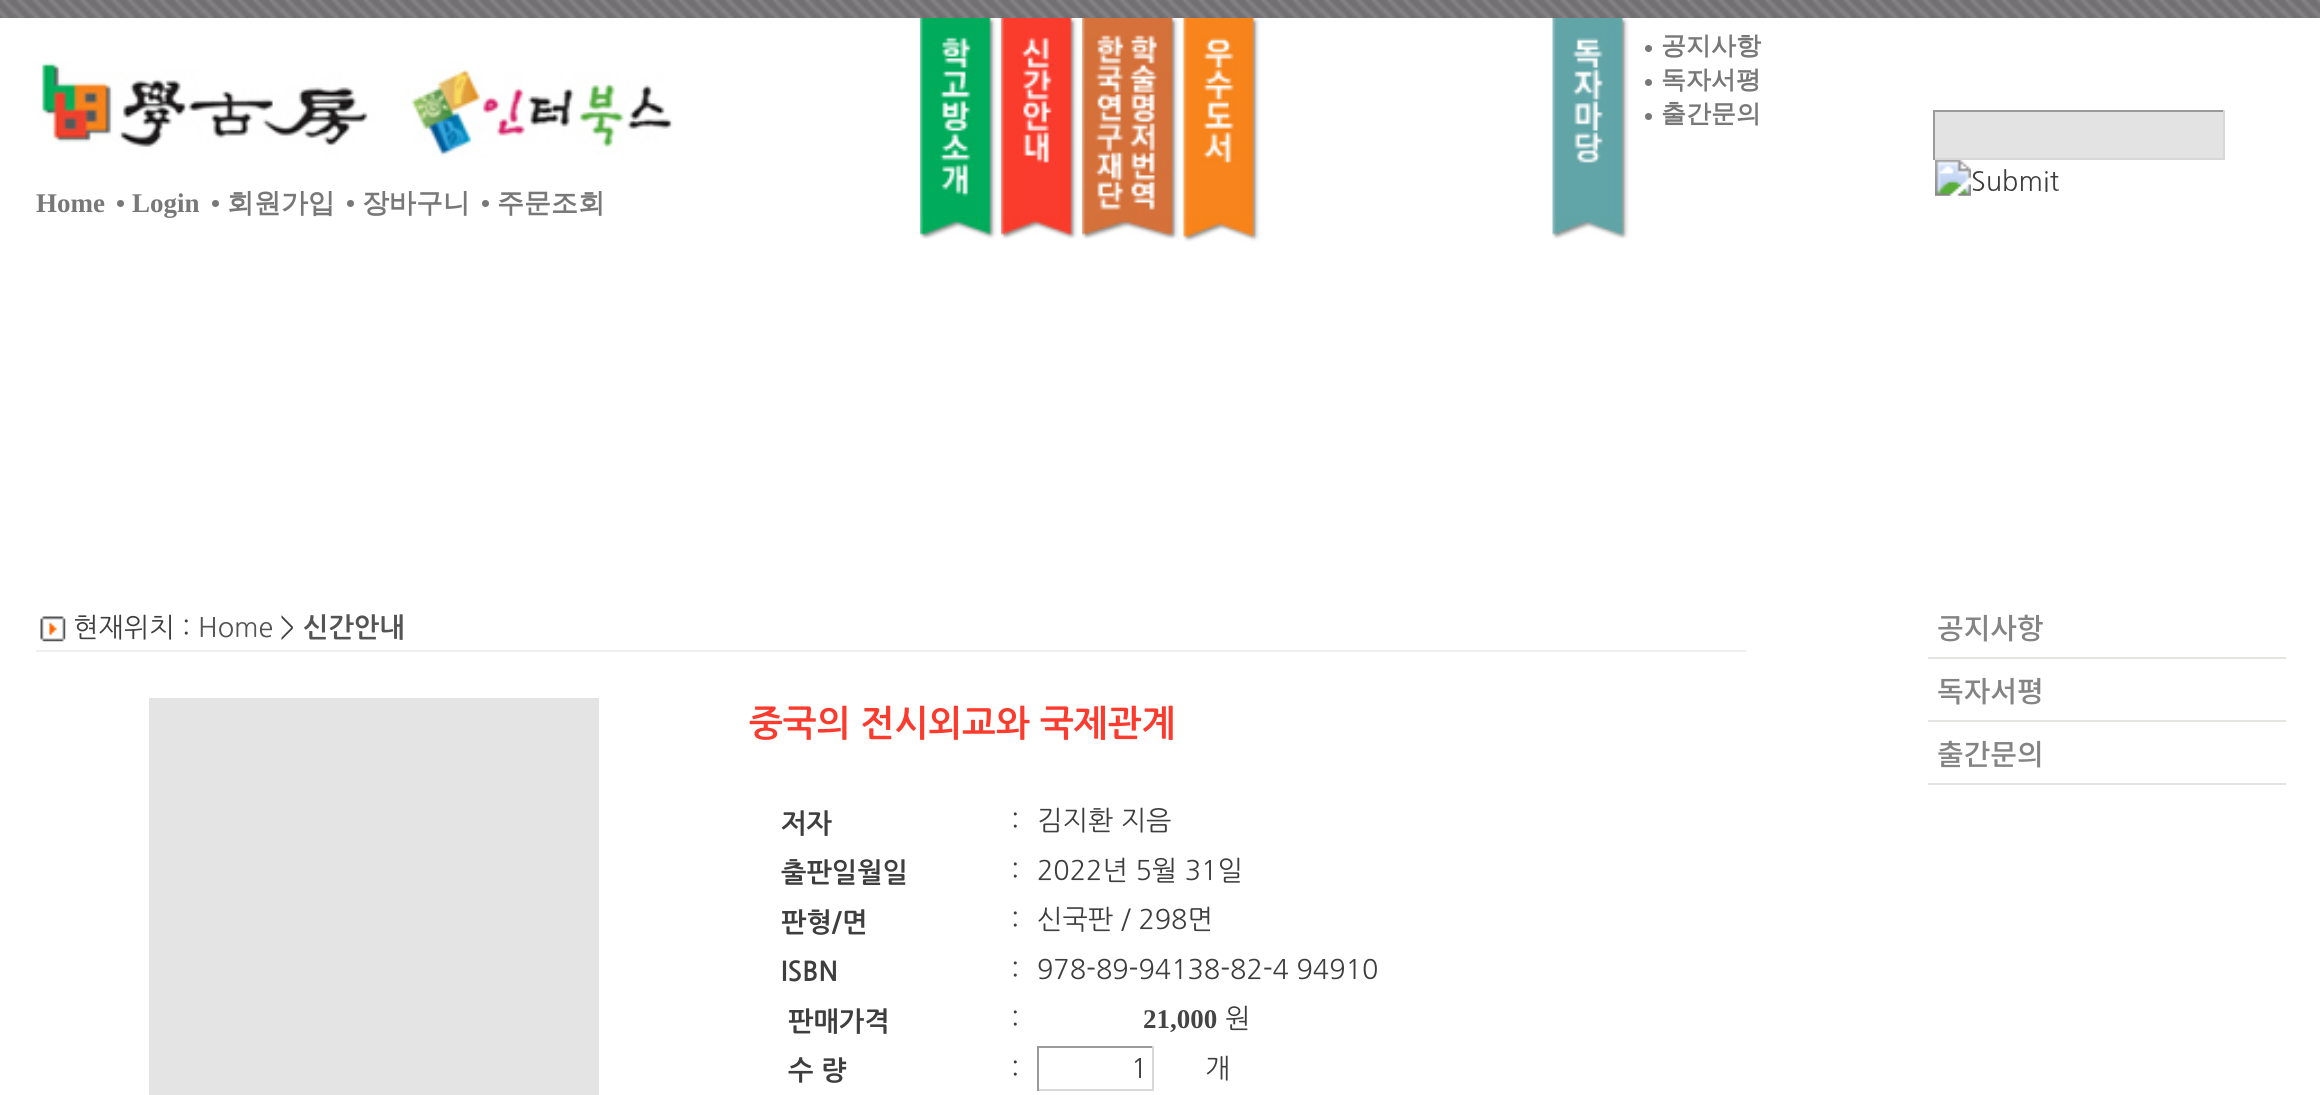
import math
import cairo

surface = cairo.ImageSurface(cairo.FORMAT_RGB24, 2320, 1095)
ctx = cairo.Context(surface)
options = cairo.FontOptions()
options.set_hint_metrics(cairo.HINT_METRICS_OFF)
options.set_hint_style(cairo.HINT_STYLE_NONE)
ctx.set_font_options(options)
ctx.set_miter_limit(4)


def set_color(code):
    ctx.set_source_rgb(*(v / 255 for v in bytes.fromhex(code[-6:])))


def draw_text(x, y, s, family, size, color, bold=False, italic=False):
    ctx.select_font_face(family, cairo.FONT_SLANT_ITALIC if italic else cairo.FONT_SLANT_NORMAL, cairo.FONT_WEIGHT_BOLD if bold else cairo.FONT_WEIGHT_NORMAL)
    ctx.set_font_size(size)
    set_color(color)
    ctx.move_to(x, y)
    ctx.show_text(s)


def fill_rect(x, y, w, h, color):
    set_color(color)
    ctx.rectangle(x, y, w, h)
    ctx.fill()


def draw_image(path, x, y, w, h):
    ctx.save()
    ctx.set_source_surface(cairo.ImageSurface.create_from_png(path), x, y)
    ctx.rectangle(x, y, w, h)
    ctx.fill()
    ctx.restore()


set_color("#ffffff")
ctx.paint()
draw_image("assets/img1.png", 0, 0, 2320, 18)
draw_image("assets/img2.png", 36, 61, 637, 96)
draw_image("assets/img3.png", 920, 18, 77, 221)
draw_image("assets/img4.png", 1001, 18, 77, 221)
draw_image("assets/img5.png", 1082, 18, 97, 221)
draw_image("assets/img6.png", 1183, 18, 77, 224)
draw_image("assets/img7.png", 1552, 18, 77, 221)
set_color("#787878")
ctx.arc(1648.5, 48.5, 3.5, 0, 2 * math.pi)
ctx.fill()
draw_text(1661, 54, "공지사항", "WenQuanYi Zen Hei", 25, "#787878", bold=True)
ctx.new_path()
ctx.arc(1648.5, 82.5, 3.5, 0, 2 * math.pi)
ctx.fill()
draw_text(1661, 88, "독자서평", "WenQuanYi Zen Hei", 25, "#787878", bold=True)
ctx.new_path()
ctx.arc(1648.5, 116.5, 3.5, 0, 2 * math.pi)
ctx.fill()
draw_text(1661, 122, "출간문의", "WenQuanYi Zen Hei", 25, "#787878", bold=True)
draw_text(36, 212, "Home", "Liberation Serif", 27, "#787878", bold=True)
ctx.new_path()
ctx.arc(120.5, 203.5, 3.5, 0, 2 * math.pi)
ctx.fill()
draw_text(132, 212, "Login", "Liberation Serif", 27, "#787878", bold=True)
ctx.new_path()
ctx.arc(215.5, 203.5, 3.5, 0, 2 * math.pi)
ctx.fill()
draw_text(227, 212, "회원가입", "WenQuanYi Zen Hei", 27, "#787878", bold=True)
ctx.new_path()
ctx.arc(350.5, 203.5, 3.5, 0, 2 * math.pi)
ctx.fill()
draw_text(362, 212, "장바구니", "WenQuanYi Zen Hei", 27, "#787878", bold=True)
ctx.new_path()
ctx.arc(485.5, 203.5, 3.5, 0, 2 * math.pi)
ctx.fill()
draw_text(497, 212, "주문조회", "WenQuanYi Zen Hei", 27, "#787878", bold=True)
fill_rect(1935, 112, 288, 46, "#e4e3e4")
fill_rect(1933, 110, 292, 2, "#9a9a9a")
fill_rect(2223, 110, 2, 50, "#d8d8d8")
fill_rect(1933, 158, 292, 2, "#d8d8d8")
fill_rect(1933, 110, 2, 50, "#9a9a9a")
draw_image("assets/img8.png", 1935, 160, 124, 36)
draw_image("assets/img9.png", 40, 616, 26, 26)
draw_text(73, 637, "현재위치 :", "NanumGothic", 27, "#3e3e3e")
draw_text(198, 637, "Home", "NanumGothic", 27, "#545454")
draw_text(280, 637, ">", "NanumGothic", 27, "#3e3e3e")
draw_text(303, 637, "신간안내", "NanumGothic", 27, "#545454", bold=True)
fill_rect(36, 650, 1710, 2, "#efefef")
fill_rect(149, 698, 450, 397, "#e4e4e4")
draw_text(749, 736, "중국의 전시외교와 국제관계", "NanumGothic", 36, "#fa3b2d", bold=True)
draw_text(781, 833, "저자", "NanumGothic", 27, "#3e3e3e", bold=True)
draw_text(1011, 830, ":", "NanumGothic", 27, "#3e3e3e")
draw_text(1037, 830, "김지환 지음", "NanumGothic", 27, "#3e3e3e")
draw_text(781, 882, "출판일월일", "NanumGothic", 27, "#3e3e3e", bold=True)
draw_text(1011, 880, ":", "NanumGothic", 27, "#3e3e3e")
draw_text(1037, 880, "2022년 5월 31일", "NanumGothic", 27, "#3e3e3e")
draw_text(781, 932, "판형/면", "NanumGothic", 27, "#3e3e3e", bold=True)
draw_text(1011, 929, ":", "NanumGothic", 27, "#3e3e3e")
draw_text(1037, 929, "신국판 / 298면", "NanumGothic", 27, "#3e3e3e")
draw_text(781, 981, "ISBN", "NanumGothic", 27, "#3e3e3e", bold=True)
draw_text(1011, 979, ":", "NanumGothic", 27, "#3e3e3e")
draw_text(1037, 979, "978-89-94138-82-4 94910", "NanumGothic", 27, "#3e3e3e")
draw_text(788, 1031, "판매가격", "NanumGothic", 27, "#3e3e3e", bold=True)
draw_text(1011, 1028, ":", "NanumGothic", 27, "#3e3e3e")
draw_text(1143, 1028, "21,000", "Liberation Serif", 27, "#444444", bold=True)
draw_text(1225, 1028, "원", "NanumGothic", 27, "#3e3e3e")
draw_text(788, 1080, "수 량", "NanumGothic", 27, "#3e3e3e", bold=True)
draw_text(1011, 1078, ":", "NanumGothic", 27, "#3e3e3e")
fill_rect(1037, 1046, 117, 2, "#9a9a9a")
fill_rect(1152, 1046, 2, 45, "#d8d8d8")
fill_rect(1037, 1089, 117, 2, "#d8d8d8")
fill_rect(1037, 1046, 2, 45, "#9a9a9a")
draw_text(1131, 1078, "1", "NanumGothic", 27, "#3e3e3e")
draw_text(1205, 1078, "개", "NanumGothic", 27, "#3e3e3e")
fill_rect(1928, 657, 358, 2, "#e4e5e0")
draw_text(1937, 639, "공지사항", "Noto Sans KR Medium", 29, "#848484")
fill_rect(1928, 720, 358, 2, "#e4e5e0")
draw_text(1937, 702, "독자서평", "Noto Sans KR Medium", 29, "#848484")
fill_rect(1928, 783, 358, 2, "#e4e5e0")
draw_text(1937, 765, "출간문의", "Noto Sans KR Medium", 29, "#848484")
surface.write_to_png("output.png")
